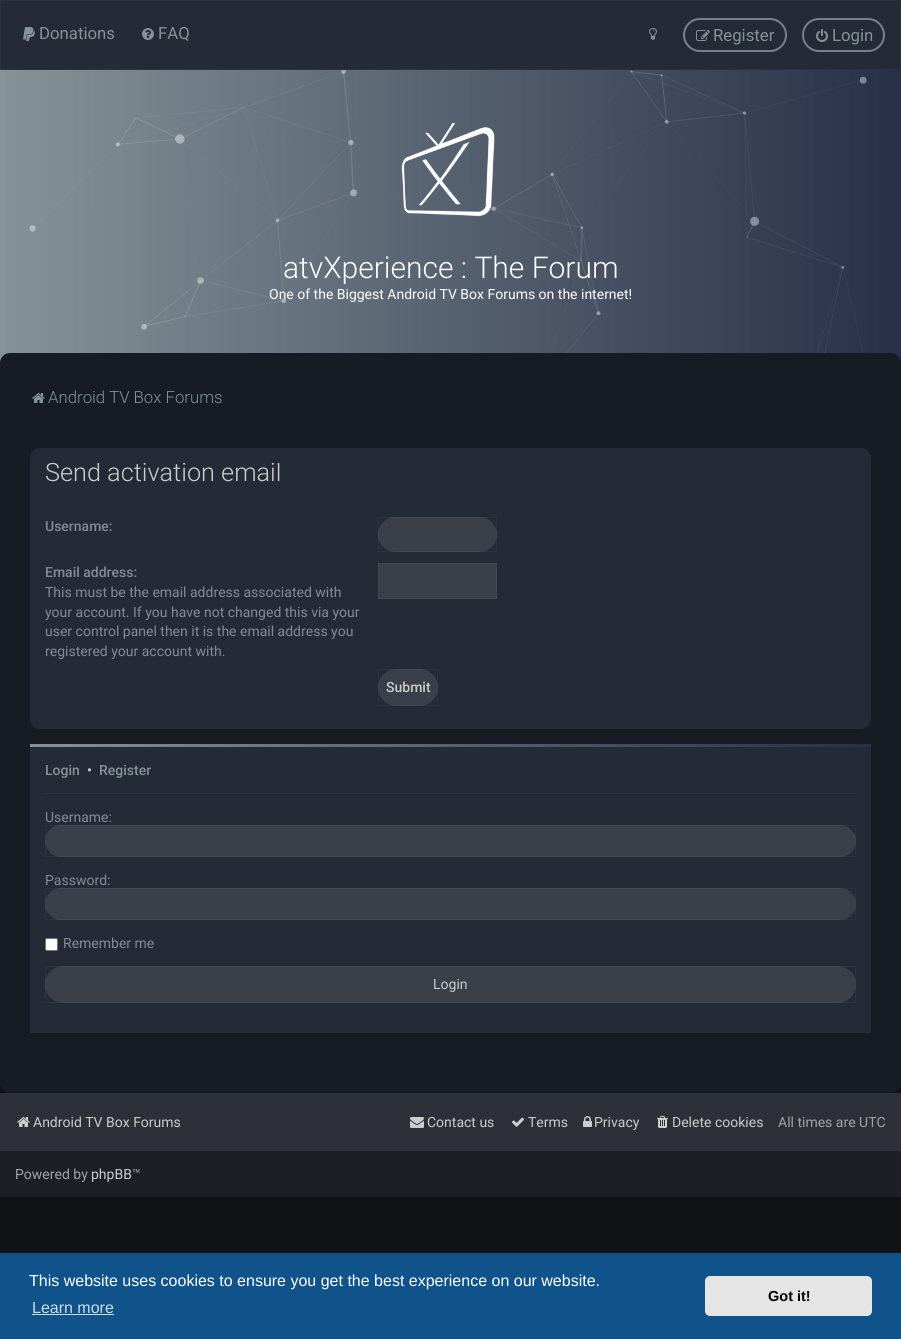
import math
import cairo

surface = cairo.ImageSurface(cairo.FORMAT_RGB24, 901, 1339)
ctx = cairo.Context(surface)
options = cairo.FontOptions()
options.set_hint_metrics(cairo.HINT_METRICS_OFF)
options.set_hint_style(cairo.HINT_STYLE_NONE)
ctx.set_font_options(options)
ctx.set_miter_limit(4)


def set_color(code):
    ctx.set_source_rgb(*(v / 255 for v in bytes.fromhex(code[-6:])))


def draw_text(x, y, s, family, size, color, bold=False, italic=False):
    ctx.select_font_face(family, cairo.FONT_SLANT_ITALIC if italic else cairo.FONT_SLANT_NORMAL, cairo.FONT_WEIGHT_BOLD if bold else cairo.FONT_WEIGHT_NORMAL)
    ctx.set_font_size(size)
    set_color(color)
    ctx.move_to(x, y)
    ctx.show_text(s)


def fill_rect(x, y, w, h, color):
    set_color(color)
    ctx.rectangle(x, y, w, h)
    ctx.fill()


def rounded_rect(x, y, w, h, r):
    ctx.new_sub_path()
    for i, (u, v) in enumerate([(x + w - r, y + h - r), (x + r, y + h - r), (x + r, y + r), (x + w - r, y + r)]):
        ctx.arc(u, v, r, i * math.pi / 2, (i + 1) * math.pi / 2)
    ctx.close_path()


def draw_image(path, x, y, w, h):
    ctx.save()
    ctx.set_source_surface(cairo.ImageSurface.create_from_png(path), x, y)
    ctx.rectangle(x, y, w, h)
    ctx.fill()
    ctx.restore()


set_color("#101216")
ctx.paint()
set_color("#242a36")
ctx.rectangle(0.5, 0.5, 900, 69)
ctx.fill_preserve()
set_color("#2d333e")
ctx.set_line_width(1)
ctx.stroke()
draw_image("assets/img1.png", 23, 27, 12, 14)
draw_text(39, 39, "Donations", "Roboto", 16.75, "#859398")
draw_image("assets/img2.png", 142, 28, 12, 12)
draw_text(158, 39, "FAQ", "Roboto", 16.75, "#859398")
draw_image("assets/img3.png", 649, 28, 8, 12)
rounded_rect(684, 19, 102, 32, 16)
set_color("#7c7f86")
ctx.set_line_width(2)
ctx.stroke()
draw_image("assets/img4.png", 696, 30, 14, 11)
draw_text(713, 41, "Register", "Roboto", 16.75, "#859398")
rounded_rect(803, 19, 81, 32, 16)
set_color("#7c7f86")
ctx.stroke()
draw_image("assets/img5.png", 816, 29, 12, 13)
draw_text(832, 41, "Login", "Roboto", 16.75, "#859398")
gradient = cairo.LinearGradient(0, 237, 901, 236)
gradient.add_color_stop_rgba(0, 0.522, 0.576, 0.596, 1)
gradient.add_color_stop_rgba(1, 0.157, 0.188, 0.282, 1)
ctx.set_source(gradient)
ctx.rectangle(0, 70, 901, 293)
ctx.fill()
draw_image("assets/img6.png", 29, 70, 838, 283)
draw_image("assets/img7.png", 401, 123, 94, 94)
draw_text(283, 278, "atvXperience : The Forum", "Roboto Light", 30, "#ffffff")
draw_text(269, 299, "One of the Biggest Android TV Box Forums on the internet!", "Roboto", 14, "#ffffff")
set_color("#171b24")
rounded_rect(0, 353, 901, 740, 10)
ctx.fill()
draw_image("assets/img8.png", 32, 393, 13, 10)
draw_text(48, 403, "Android TV Box Forums", "Roboto Light", 16.75, "#859398")
set_color("#242a36")
rounded_rect(30, 448, 841, 281, 10)
ctx.fill()
ctx.save()
ctx.rectangle(45, 463, 811, 251)
ctx.clip()
draw_text(45, 481, "Send activation email", "Roboto Light", 25.25, "#cccccc")
ctx.restore()
draw_text(45, 531, "Username:", "Roboto Medium", 14, "#838b98")
set_color("#3a3f4a")
rounded_rect(378, 517, 119, 35, 17.5)
ctx.fill()
ctx.rectangle(378.5, 517.5, 118, 34)
ctx.set_source_rgba(1, 1, 1, 0.04)
ctx.set_line_width(1)
ctx.stroke()
draw_text(45, 577, "Email address:", "Roboto Medium", 14, "#838b98")
draw_text(45, 597, "This must be the email address associated with", "Roboto", 14, "#838b98")
draw_text(45, 617, "your account. If you have not changed this via your", "Roboto", 14, "#838b98")
draw_text(45, 636, "user control panel then it is the email address you", "Roboto", 14, "#838b98")
draw_text(45, 656, "registered your account with.", "Roboto", 14, "#838b98")
set_color("#3a3f4a")
ctx.rectangle(378.5, 563.5, 118, 35)
ctx.fill_preserve()
set_color("#424751")
ctx.stroke()
set_color("#3a3f4a")
rounded_rect(378, 669, 60, 37, 18.5)
ctx.fill()
ctx.rectangle(378.5, 669.5, 59, 36)
ctx.set_source_rgba(1, 1, 1, 0.04)
ctx.stroke()
draw_text(386, 692, "Submit", "Roboto Medium", 14, "#cccccc")
fill_rect(30, 747, 841, 286, "#242a36")
gradient = cairo.LinearGradient(30, 746, 871, 746)
gradient.add_color_stop_rgba(0, 0.522, 0.576, 0.596, 1)
gradient.add_color_stop_rgba(1, 0.157, 0.188, 0.282, 1)
ctx.set_source(gradient)
ctx.rectangle(30, 744, 841, 3)
ctx.fill()
draw_text(45, 775, "Login", "Roboto Medium", 14, "#859398")
draw_text(87, 775, "•", "Roboto Medium", 14, "#cccccc")
draw_text(99, 775, "Register", "Roboto Medium", 14, "#859398")
fill_rect(45, 793, 811, 1, "#2d333e")
draw_text(45, 822, "Username:", "Roboto", 14, "#838b98")
set_color("#3a3f4a")
rounded_rect(45, 825, 811, 32, 16)
ctx.fill()
ctx.rectangle(45.5, 825.5, 810, 31)
ctx.set_source_rgba(1, 1, 1, 0.04)
ctx.stroke()
draw_text(45, 885, "Password:", "Roboto", 14, "#838b98")
set_color("#3a3f4a")
rounded_rect(45, 888, 811, 32, 16)
ctx.fill()
ctx.rectangle(45.5, 888.5, 810, 31)
ctx.set_source_rgba(1, 1, 1, 0.04)
ctx.stroke()
set_color("#ffffff")
rounded_rect(45.5, 938.5, 12, 12, 1.5)
ctx.fill_preserve()
set_color("#767676")
ctx.stroke()
draw_text(63, 948, "Remember me", "Roboto", 14, "#838b98")
set_color("#3a3f4a")
rounded_rect(45, 966, 811, 37, 18.5)
ctx.fill()
ctx.rectangle(45.5, 966.5, 810, 36)
ctx.set_source_rgba(1, 1, 1, 0.04)
ctx.stroke()
draw_text(433, 989, "Login", "Roboto", 14, "#cccccc")
fill_rect(0, 1093, 901, 58, "#2d3039")
draw_image("assets/img9.png", 17, 1117, 13, 10)
draw_text(33, 1127, "Android TV Box Forums", "Roboto", 14, "#cccccc")
draw_image("assets/img10.png", 410, 1117, 14, 11)
draw_text(427, 1127, "Contact us", "Roboto", 14, "#cccccc")
draw_image("assets/img11.png", 512, 1117, 12, 10)
draw_text(528, 1127, "Terms", "Roboto", 14, "#cccccc")
draw_image("assets/img12.png", 583, 1116, 9, 11)
draw_text(594, 1127, "Privacy", "Roboto", 14, "#cccccc")
draw_image("assets/img13.png", 657, 1116, 11, 12)
draw_text(672, 1127, "Delete cookies", "Roboto", 14, "#cccccc")
draw_text(778, 1127, "All times are UTC", "Roboto", 14, "#a4a4a7")
fill_rect(0, 1151, 901, 46, "#1d1f25")
draw_text(15, 1179, "Powered by", "Roboto", 14, "#a4a4a7")
draw_text(91, 1179, "phpBB", "Roboto", 14, "#cccccc")
draw_text(132, 1179, "™", "Roboto", 14, "#a4a4a7")
fill_rect(0, 1253, 901, 86, "#0f538a")
draw_text(29, 1286, "This website uses cookies to ensure you get the best experience on our website.", "Liberation Sans", 16, "#ffffff")
draw_text(32, 1313, "Learn more", "Liberation Sans", 16, "#cfdde8")
fill_rect(32, 1314, 82, 1, "#cfdde8")
set_color("#e5e5e5")
rounded_rect(705, 1276, 167, 40, 5)
ctx.fill()
draw_text(768, 1301, "Got it!", "Liberation Sans", 14.5, "#000000", bold=True)
surface.write_to_png("output.png")
